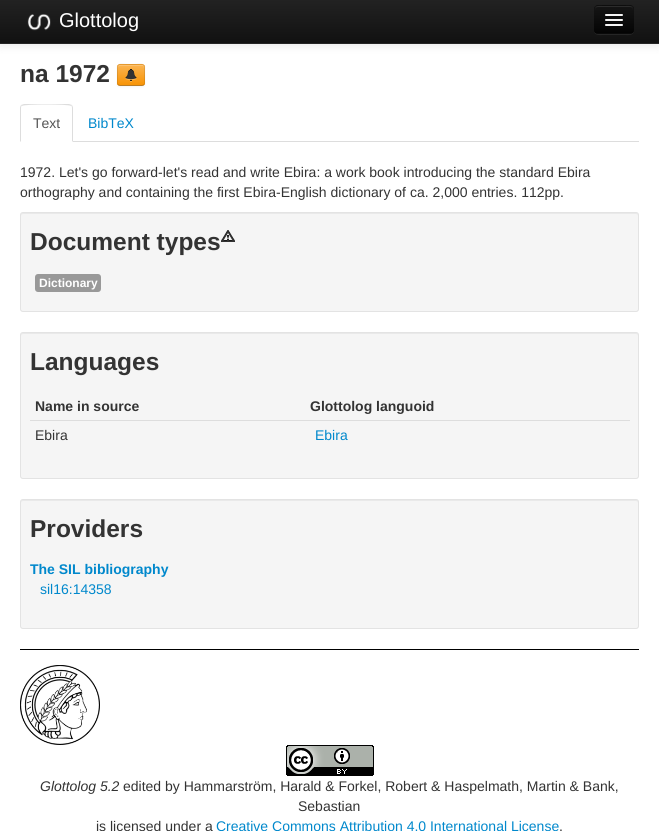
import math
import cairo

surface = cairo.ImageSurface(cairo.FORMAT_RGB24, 659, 831)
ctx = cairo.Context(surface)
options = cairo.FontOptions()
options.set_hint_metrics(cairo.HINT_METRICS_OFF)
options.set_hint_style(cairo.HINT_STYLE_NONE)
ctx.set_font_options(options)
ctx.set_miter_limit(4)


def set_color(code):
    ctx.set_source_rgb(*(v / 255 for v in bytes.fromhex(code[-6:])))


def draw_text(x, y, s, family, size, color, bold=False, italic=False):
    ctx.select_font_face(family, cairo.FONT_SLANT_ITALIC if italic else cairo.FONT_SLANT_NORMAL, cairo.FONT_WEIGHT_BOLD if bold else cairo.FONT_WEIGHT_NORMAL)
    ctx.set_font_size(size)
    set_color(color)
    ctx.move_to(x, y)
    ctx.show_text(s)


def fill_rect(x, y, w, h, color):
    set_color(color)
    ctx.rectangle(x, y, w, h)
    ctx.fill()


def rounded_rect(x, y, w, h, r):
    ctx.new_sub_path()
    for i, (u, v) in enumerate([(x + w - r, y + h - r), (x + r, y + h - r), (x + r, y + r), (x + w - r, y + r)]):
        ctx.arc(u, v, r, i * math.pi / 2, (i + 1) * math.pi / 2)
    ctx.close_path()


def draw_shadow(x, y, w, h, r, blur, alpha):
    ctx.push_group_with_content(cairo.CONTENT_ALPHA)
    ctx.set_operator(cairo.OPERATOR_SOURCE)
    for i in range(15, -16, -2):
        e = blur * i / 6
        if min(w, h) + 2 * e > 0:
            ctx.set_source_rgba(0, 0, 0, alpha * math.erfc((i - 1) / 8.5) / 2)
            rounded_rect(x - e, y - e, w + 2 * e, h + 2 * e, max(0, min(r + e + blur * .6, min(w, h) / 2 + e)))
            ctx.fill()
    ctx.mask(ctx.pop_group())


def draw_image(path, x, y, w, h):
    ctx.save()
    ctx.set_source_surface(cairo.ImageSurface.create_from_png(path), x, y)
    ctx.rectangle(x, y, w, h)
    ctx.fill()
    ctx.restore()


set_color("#ffffff")
ctx.paint()
set_color("#000000")
draw_shadow(0, 1, 659, 44, 0, 5, 0.1)
gradient = cairo.LinearGradient(330, 0, 330, 43)
gradient.add_color_stop_rgba(0, 0.133, 0.133, 0.133, 1)
gradient.add_color_stop_rgba(1, 0.067, 0.067, 0.067, 1)
ctx.set_source(gradient)
ctx.rectangle(0, 0, 659, 43)
ctx.fill()
fill_rect(0, 43, 659, 1, "#252525")
draw_image("assets/img1.png", 27, 14, 24, 17)
draw_text(59, 27, "Glottolog", "Liberation Sans", 20, "#ffffff")
set_color("#262626")
ctx.new_path()
ctx.move_to(594, 30)
ctx.curve_to(594, 36, 599, 35, 603, 35)
ctx.line_to(625, 35)
ctx.curve_to(629, 35, 634, 36, 634, 30)
ctx.curve_to(634, 32, 632, 34, 630, 34)
ctx.line_to(598, 34)
ctx.curve_to(596, 34, 594, 32, 594, 30)
ctx.close_path()
ctx.fill()
set_color("#0e0e0e")
rounded_rect(594, 5, 40, 29, 4)
ctx.fill()
ctx.save()
rounded_rect(594, 5, 40, 29, 4)
ctx.clip()
gradient = cairo.LinearGradient(614, 6, 614, 33)
gradient.add_color_stop_rgba(0, 0.082, 0.082, 0.082, 1)
gradient.add_color_stop_rgba(1, 0.016, 0.016, 0.016, 1)
ctx.set_source(gradient)
ctx.rectangle(594, 6, 40, 27)
ctx.fill()
ctx.restore()
set_color("#2c2c2c")
ctx.new_path()
ctx.move_to(598, 7)
ctx.line_to(630, 7)
ctx.curve_to(632, 7, 633, 8, 633, 10)
ctx.curve_to(633, 5, 629, 6, 624.5, 6)
ctx.line_to(603.5, 6)
ctx.curve_to(599, 6, 595, 5, 595, 10)
ctx.curve_to(595, 8, 596, 7, 598, 7)
ctx.close_path()
ctx.fill()
ctx.new_path()
ctx.move_to(632.5, 32.5)
ctx.curve_to(632, 33, 631, 33.5, 630, 33.5)
ctx.line_to(598, 33.5)
ctx.curve_to(597, 33.5, 596, 33, 595.5, 32.5)
ctx.set_source_rgba(0, 0, 0, 0.25)
ctx.set_line_width(1)
ctx.stroke()
set_color("#0b0b0b")
ctx.new_path()
ctx.move_to(605, 15.5)
ctx.curve_to(604, 17.5, 608.5, 17, 608.5, 17)
ctx.line_to(619.5, 17)
ctx.curve_to(619.5, 17, 624, 17.5, 623, 15.5)
ctx.curve_to(622, 16.5, 615.5, 16, 614, 16)
ctx.curve_to(612.5, 16, 606, 16.5, 605, 15.5)
ctx.close_path()
ctx.fill()
set_color("#f5f5f5")
rounded_rect(605, 14, 18, 2, 1)
ctx.fill()
set_color("#080808")
ctx.new_path()
ctx.move_to(605, 20.5)
ctx.curve_to(604, 22.5, 608.5, 22, 608.5, 22)
ctx.line_to(619.5, 22)
ctx.curve_to(619.5, 22, 624, 22.5, 623, 20.5)
ctx.curve_to(622, 21.5, 615.5, 21, 614, 21)
ctx.curve_to(612.5, 21, 606, 21.5, 605, 20.5)
ctx.close_path()
ctx.fill()
set_color("#f5f5f5")
rounded_rect(605, 19, 18, 2, 1)
ctx.fill()
rounded_rect(605, 24, 18, 2, 1)
ctx.fill()
draw_text(20, 82, "na 1972", "Liberation Sans", 24.5, "#333333", bold=True)
set_color("#000000")
draw_shadow(117, 65, 28, 22, 3, 1, 0.05)
set_color("#faa732")
rounded_rect(117, 64, 28, 22, 3)
ctx.fill()
ctx.save()
rounded_rect(117, 64, 28, 22, 3)
ctx.clip()
gradient = cairo.LinearGradient(131, 65, 131, 85)
gradient.add_color_stop_rgba(0, 0.984, 0.706, 0.314, 1)
gradient.add_color_stop_rgba(1, 0.973, 0.58, 0.024, 1)
ctx.set_source(gradient)
ctx.rectangle(117, 65, 28, 20)
ctx.fill()
ctx.restore()
ctx.set_source_rgba(1, 1, 1, 0.2)
ctx.new_path()
ctx.move_to(120, 66)
ctx.line_to(143, 66)
ctx.line_to(144, 68.5)
ctx.curve_to(144, 64, 142.5, 65, 138.5, 65)
ctx.line_to(123.5, 65)
ctx.curve_to(120, 65, 118, 64, 118, 68)
ctx.curve_to(118, 67, 119, 66, 120, 66)
ctx.close_path()
ctx.fill()
ctx.new_path()
ctx.move_to(144, 85)
ctx.curve_to(143.5, 85, 142.5, 85.5, 142, 85.5)
ctx.line_to(120, 85.5)
ctx.curve_to(119.5, 85.5, 118.5, 85, 118, 85)
ctx.set_source_rgba(0, 0, 0, 0.25)
ctx.stroke()
ctx.new_path()
ctx.move_to(118, 85)
ctx.curve_to(117, 83.5, 117.5, 81.5, 117.5, 80.5)
ctx.line_to(117.5, 75)
ctx.curve_to(117.5, 61.5, 116.5, 64.5, 131, 64.5)
ctx.curve_to(145.5, 64.5, 144.5, 61.5, 144.5, 75)
ctx.line_to(144.5, 80.5)
ctx.curve_to(144.5, 81.5, 145, 83.5, 144, 85)
ctx.set_source_rgba(0, 0, 0, 0.1)
ctx.stroke()
draw_image("assets/img2.png", 125, 69, 12, 13)
fill_rect(73, 141, 566, 1, "#dddddd")
ctx.new_path()
ctx.move_to(24, 104)
ctx.line_to(21, 105)
ctx.line_to(22, 106)
ctx.curve_to(23, 104, 70, 104, 71, 106)
ctx.line_to(72, 105)
ctx.line_to(69, 104)
ctx.close_path()
ctx.fill()
ctx.new_path()
ctx.move_to(73, 142)
ctx.line_to(73, 108)
ctx.curve_to(73, 107, 72.5, 106, 72, 105)
ctx.line_to(71, 106)
ctx.curve_to(72, 106, 72, 107, 72, 108)
ctx.line_to(72, 141)
ctx.close_path()
ctx.move_to(20, 142)
ctx.line_to(21, 141)
ctx.line_to(21, 108)
ctx.curve_to(21, 107, 21, 106, 22, 106)
ctx.line_to(21, 105)
ctx.curve_to(20.5, 106, 20, 107, 20, 108)
ctx.close_path()
ctx.fill()
draw_text(33, 128, "Text", "Liberation Sans", 14, "#555555")
draw_text(88, 128, "BibTeX", "Liberation Sans", 14, "#0088cc")
draw_text(20, 177, "1972. Let's go forward-let's read and write Ebira: a work book introducing the standard Ebira", "Liberation Sans", 14, "#333333")
draw_text(20, 197, "orthography and containing the first Ebira-English dictionary of ca. 2,000 entries. 112pp.", "Liberation Sans", 14, "#333333")
set_color("#f5f5f5")
rounded_rect(20, 212, 619, 100, 3)
ctx.fill()
set_color("#e9e9e9")
ctx.new_path()
ctx.move_to(23, 214)
ctx.line_to(636, 214)
ctx.curve_to(637, 214, 638, 215, 638, 216)
ctx.curve_to(638, 215, 638, 213, 636, 213)
ctx.line_to(23, 213)
ctx.curve_to(21, 213, 21, 215, 21, 216)
ctx.curve_to(21, 215, 22, 214, 23, 214)
ctx.close_path()
ctx.fill()
rounded_rect(20.5, 212.5, 618, 99, 2.5)
set_color("#e3e3e3")
ctx.stroke()
draw_text(30, 250, "Document types", "Liberation Sans", 24.5, "#333333", bold=True)
draw_image("assets/img3.png", 221, 230, 14, 12)
set_color("#999999")
rounded_rect(35, 274, 66, 18, 3)
ctx.fill()
draw_text(39, 287, "Dictionary", "Liberation Sans", 12, "#ffffff", bold=True)
set_color("#f5f5f5")
rounded_rect(20, 332, 619, 147, 3)
ctx.fill()
set_color("#e9e9e9")
ctx.new_path()
ctx.move_to(23, 334)
ctx.line_to(636, 334)
ctx.curve_to(637, 334, 638, 335, 638, 336)
ctx.curve_to(638, 335, 638, 333, 636, 333)
ctx.line_to(23, 333)
ctx.curve_to(21, 333, 21, 335, 21, 336)
ctx.curve_to(21, 335, 22, 334, 23, 334)
ctx.close_path()
ctx.fill()
rounded_rect(20.5, 332.5, 618, 146, 2.5)
set_color("#e3e3e3")
ctx.stroke()
draw_text(30, 370, "Languages", "Liberation Sans", 24.5, "#333333", bold=True)
draw_text(35, 411, "Name in source", "Liberation Sans", 14, "#333333", bold=True)
draw_text(310, 411, "Glottolog languoid", "Liberation Sans", 14, "#333333", bold=True)
draw_text(35, 440, "Ebira", "Liberation Sans", 14, "#333333")
fill_rect(30, 420, 600, 1, "#dddddd")
draw_text(315, 440, "Ebira", "Liberation Sans", 14, "#0088cc")
set_color("#f5f5f5")
rounded_rect(20, 499, 619, 130, 3)
ctx.fill()
set_color("#e9e9e9")
ctx.new_path()
ctx.move_to(23, 501)
ctx.line_to(636, 501)
ctx.curve_to(637, 501, 638, 502, 638, 503)
ctx.curve_to(638, 502, 638, 500, 636, 500)
ctx.line_to(23, 500)
ctx.curve_to(21, 500, 21, 502, 21, 503)
ctx.curve_to(21, 502, 22, 501, 23, 501)
ctx.close_path()
ctx.fill()
rounded_rect(20.5, 499.5, 618, 129, 2.5)
set_color("#e3e3e3")
ctx.stroke()
draw_text(30, 537, "Providers", "Liberation Sans", 24.5, "#333333", bold=True)
draw_text(30, 574, "The SIL bibliography", "Liberation Sans", 14, "#0088cc", bold=True)
draw_text(40, 594, "sil16:14358", "Liberation Sans", 14, "#0088cc")
fill_rect(20, 649, 619, 1, "#000000")
draw_image("assets/img4.png", 20, 665, 80, 80)
draw_image("assets/img5.png", 286, 745, 88, 31)
draw_text(40, 791, "Glottolog 5.2", "Liberation Sans", 14, "#333333", italic=True)
draw_text(123, 791, "edited by Hammarström, Harald & Forkel, Robert & Haspelmath, Martin & Bank,", "Liberation Sans", 14, "#333333")
draw_text(298, 811, "Sebastian", "Liberation Sans", 14, "#333333")
draw_text(96, 831, "is licensed under a", "Liberation Sans", 14, "#333333")
draw_text(216, 831, "Creative Commons Attribution 4.0 International License", "Liberation Sans", 14, "#0088cc")
draw_text(559, 831, ".", "Liberation Sans", 14, "#333333")
surface.write_to_png("output.png")
